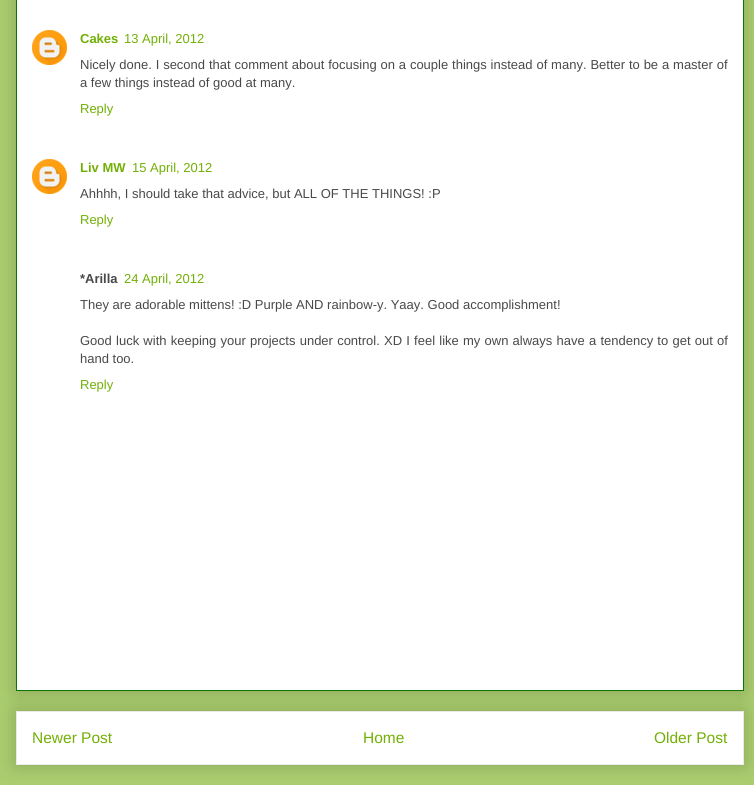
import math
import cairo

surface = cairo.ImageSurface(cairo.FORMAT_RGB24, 754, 785)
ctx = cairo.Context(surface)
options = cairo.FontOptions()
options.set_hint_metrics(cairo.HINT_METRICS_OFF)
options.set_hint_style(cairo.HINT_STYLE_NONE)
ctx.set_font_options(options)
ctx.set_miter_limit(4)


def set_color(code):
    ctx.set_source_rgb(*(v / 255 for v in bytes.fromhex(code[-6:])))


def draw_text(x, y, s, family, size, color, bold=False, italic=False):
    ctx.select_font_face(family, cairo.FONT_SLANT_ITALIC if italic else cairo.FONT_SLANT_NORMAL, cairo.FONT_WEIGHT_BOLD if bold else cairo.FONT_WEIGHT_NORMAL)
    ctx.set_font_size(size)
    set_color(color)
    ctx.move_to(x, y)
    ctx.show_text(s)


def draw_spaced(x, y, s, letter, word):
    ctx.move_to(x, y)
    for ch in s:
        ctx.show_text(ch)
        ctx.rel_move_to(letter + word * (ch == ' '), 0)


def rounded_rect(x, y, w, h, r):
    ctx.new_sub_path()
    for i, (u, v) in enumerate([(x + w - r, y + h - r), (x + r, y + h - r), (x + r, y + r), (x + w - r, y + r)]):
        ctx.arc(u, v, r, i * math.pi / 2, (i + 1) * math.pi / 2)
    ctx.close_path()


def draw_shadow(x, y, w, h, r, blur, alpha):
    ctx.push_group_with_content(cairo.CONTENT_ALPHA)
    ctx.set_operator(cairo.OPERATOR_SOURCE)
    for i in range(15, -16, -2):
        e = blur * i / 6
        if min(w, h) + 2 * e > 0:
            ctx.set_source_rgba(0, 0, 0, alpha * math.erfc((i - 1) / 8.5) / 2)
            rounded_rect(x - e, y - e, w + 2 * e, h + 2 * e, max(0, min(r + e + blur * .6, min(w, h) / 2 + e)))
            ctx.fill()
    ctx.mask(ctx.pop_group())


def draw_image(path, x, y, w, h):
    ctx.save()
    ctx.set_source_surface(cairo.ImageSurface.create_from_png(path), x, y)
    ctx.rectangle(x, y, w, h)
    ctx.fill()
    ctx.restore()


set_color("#abcd6f")
ctx.paint()
set_color("#000000")
draw_shadow(16, 711, 728, 54, 0, 10, 0.2)
set_color("#ffffff")
ctx.rectangle(16.5, 711.5, 727, 53)
ctx.fill_preserve()
set_color("#eaeaea")
ctx.set_line_width(1)
ctx.stroke()
set_color("#000000")
draw_shadow(16, -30, 728, 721, 0, 10, 0.2)
set_color("#ffffff")
ctx.rectangle(16.5, -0.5, 727, 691)
ctx.fill_preserve()
set_color("#0f7407")
ctx.stroke()
draw_image("assets/img1.png", 32, 30, 35, 35)
draw_text(80, 43, "Cakes", "Liberation Sans", 13, "#72b005", bold=True)
draw_text(124, 43, "13 April, 2012", "Liberation Sans", 13, "#72b005")
set_color("#494949")
draw_spaced(80, 69, "Nicely done. I second that comment about focusing on a couple things instead of many. Better to be a master of", 0, 0.25)
draw_text(80, 87, "a few things instead of good at many.", "Liberation Sans", 13, "#494949")
draw_text(80, 113, "Reply", "Liberation Sans", 13, "#72b005")
draw_image("assets/img1.png", 32, 159, 35, 35)
draw_text(80, 172, "Liv MW", "Liberation Sans", 13, "#72b005", bold=True)
draw_text(132, 172, "15 April, 2012", "Liberation Sans", 13, "#72b005")
draw_text(80, 198, "Ahhhh, I should take that advice, but ALL OF THE THINGS! :P", "Liberation Sans", 13, "#494949")
draw_text(80, 224, "Reply", "Liberation Sans", 13, "#72b005")
draw_text(80, 283, "*Arilla", "Liberation Sans", 13, "#494949", bold=True)
draw_text(124, 283, "24 April, 2012", "Liberation Sans", 13, "#72b005")
draw_text(80, 309, "They are adorable mittens! :D Purple AND rainbow-y. Yaay. Good accomplishment!", "Liberation Sans", 13, "#494949")
draw_spaced(80, 345, "Good luck with keeping your projects under control. XD I feel like my own always have a tendency to get out of", 0, 0.6)
draw_text(80, 363, "hand too.", "Liberation Sans", 13, "#494949")
draw_text(80, 389, "Reply", "Liberation Sans", 13, "#72b005")
draw_text(32, 743, "Newer Post", "Liberation Sans", 15.5, "#72b005")
draw_text(363, 743, "Home", "Liberation Sans", 15.5, "#72b005")
draw_text(654, 743, "Older Post", "Liberation Sans", 15.5, "#72b005")
surface.write_to_png("output.png")
